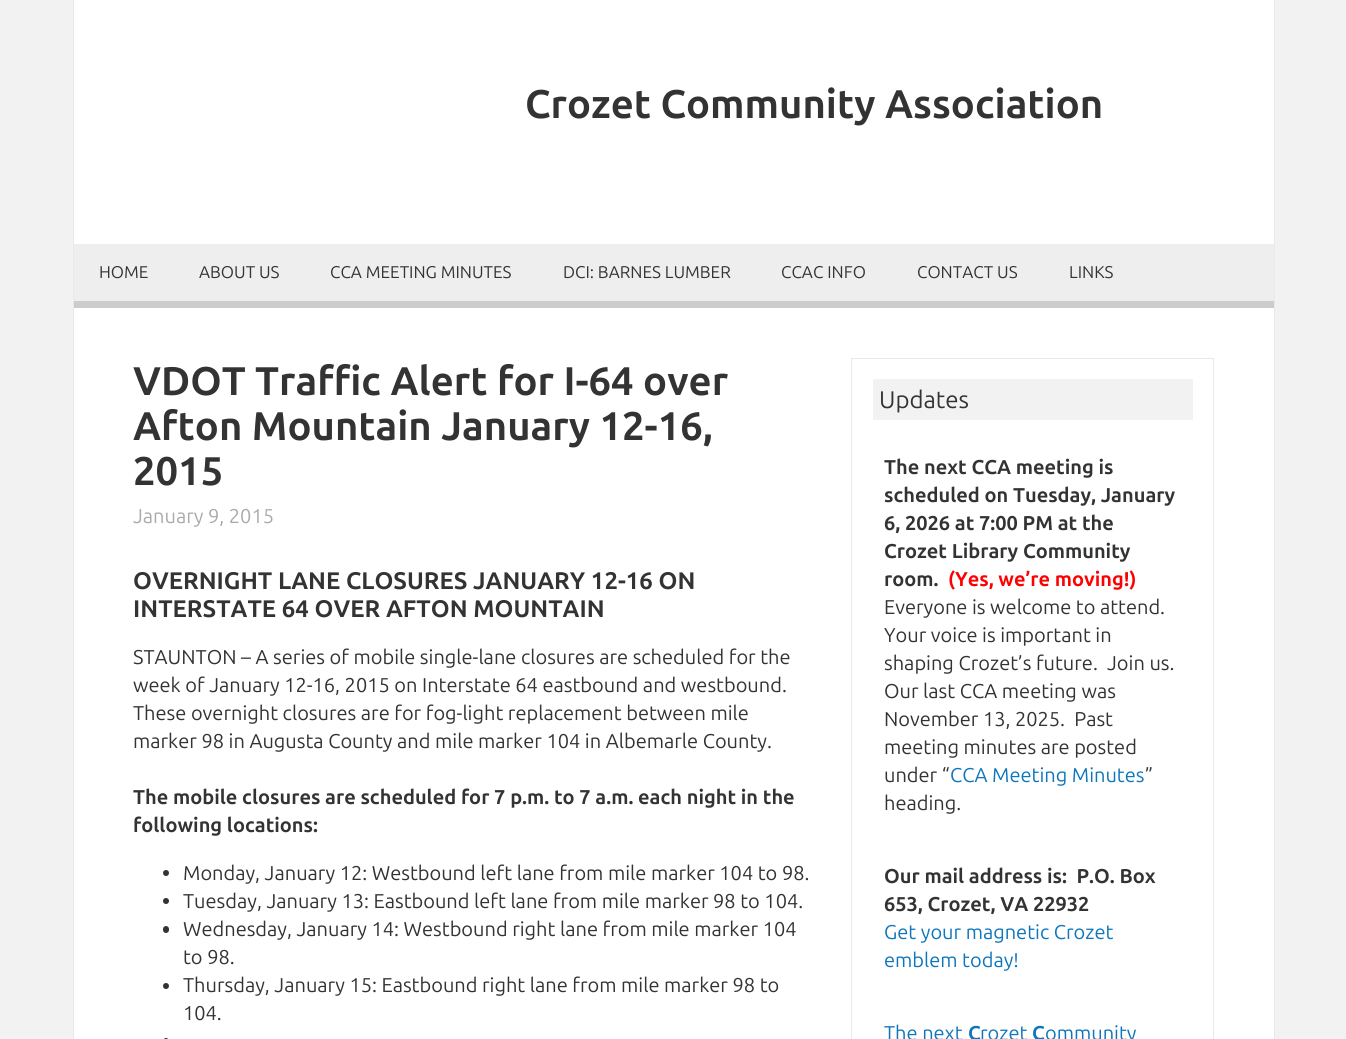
import math
import cairo

surface = cairo.ImageSurface(cairo.FORMAT_RGB24, 1346, 1039)
ctx = cairo.Context(surface)
options = cairo.FontOptions()
options.set_hint_metrics(cairo.HINT_METRICS_OFF)
options.set_hint_style(cairo.HINT_STYLE_NONE)
ctx.set_font_options(options)
ctx.set_miter_limit(4)


def set_color(code):
    ctx.set_source_rgb(*(v / 255 for v in bytes.fromhex(code[-6:])))


def draw_text(x, y, s, family, size, color, bold=False, italic=False):
    ctx.select_font_face(family, cairo.FONT_SLANT_ITALIC if italic else cairo.FONT_SLANT_NORMAL, cairo.FONT_WEIGHT_BOLD if bold else cairo.FONT_WEIGHT_NORMAL)
    ctx.set_font_size(size)
    set_color(color)
    ctx.move_to(x, y)
    ctx.show_text(s)


def fill_rect(x, y, w, h, color):
    set_color(color)
    ctx.rectangle(x, y, w, h)
    ctx.fill()


def rounded_rect(x, y, w, h, r):
    ctx.new_sub_path()
    for i, (u, v) in enumerate([(x + w - r, y + h - r), (x + r, y + h - r), (x + r, y + r), (x + w - r, y + r)]):
        ctx.arc(u, v, r, i * math.pi / 2, (i + 1) * math.pi / 2)
    ctx.close_path()


set_color("#f2f2f2")
ctx.paint()
fill_rect(74, 0, 1200, 1039, "#ffffff")
fill_rect(1274, 0, 1, 1039, "#e9e9e9")
fill_rect(73, 0, 1, 1039, "#e9e9e9")
draw_text(525, 118, "Crozet Community Association", "Ubuntu", 40, "#333333", bold=True)
fill_rect(74, 244, 1200, 57, "#eeeeee")
fill_rect(74, 301, 1200, 7, "#cccccc")
draw_text(99, 278, "HOME", "Ubuntu", 17, "#333333")
draw_text(199, 278, "ABOUT US", "Ubuntu", 17, "#333333")
draw_text(330, 278, "CCA MEETING MINUTES", "Ubuntu", 17, "#333333")
draw_text(563, 278, "DCI: BARNES LUMBER", "Ubuntu", 17, "#333333")
draw_text(781, 278, "CCAC INFO", "Ubuntu", 17, "#333333")
draw_text(917, 278, "CONTACT US", "Ubuntu", 17, "#333333")
draw_text(1069, 278, "LINKS", "Ubuntu", 17, "#333333")
draw_text(133, 395, "VDOT Traffic Alert for I-64 over", "Ubuntu", 40, "#333333", bold=True)
draw_text(133, 440, "Afton Mountain January 12-16,", "Ubuntu", 40, "#333333", bold=True)
draw_text(133, 485, "2015", "Ubuntu", 40, "#333333", bold=True)
draw_text(133, 523, "January 9, 2015", "Ubuntu", 20, "#aaaaaa")
draw_text(133, 589, "OVERNIGHT LANE CLOSURES JANUARY 12-16 ON", "Ubuntu", 24, "#333333", bold=True)
draw_text(133, 617, "INTERSTATE 64 OVER AFTON MOUNTAIN", "Ubuntu", 24, "#333333", bold=True)
draw_text(133, 664, "STAUNTON – A series of mobile single-lane closures are scheduled for the", "Ubuntu", 20, "#333333")
draw_text(133, 692, "week of January 12-16, 2015 on Interstate 64 eastbound and westbound.", "Ubuntu", 20, "#333333")
draw_text(133, 720, "These overnight closures are for fog-light replacement between mile", "Ubuntu", 20, "#333333")
draw_text(133, 748, "marker 98 in Augusta County and mile marker 104 in Albemarle County.", "Ubuntu", 20, "#333333")
draw_text(133, 804, "The mobile closures are scheduled for 7 p.m. to 7 a.m. each night in the", "Ubuntu", 20, "#333333", bold=True)
draw_text(133, 832, "following locations:", "Ubuntu", 20, "#333333", bold=True)
ctx.new_path()
ctx.arc(166, 873, 3, 0, 2 * math.pi)
ctx.fill()
draw_text(183, 880, "Monday, January 12: Westbound left lane from mile marker 104 to 98.", "Ubuntu", 20, "#333333")
ctx.new_path()
ctx.arc(166, 901, 3, 0, 2 * math.pi)
ctx.fill()
draw_text(183, 908, "Tuesday, January 13: Eastbound left lane from mile marker 98 to 104.", "Ubuntu", 20, "#333333")
rounded_rect(163, 926, 6, 7, 3)
ctx.fill()
draw_text(183, 936, "Wednesday, January 14: Westbound right lane from mile marker 104", "Ubuntu", 20, "#333333")
draw_text(183, 964, "to 98.", "Ubuntu", 20, "#333333")
ctx.new_path()
ctx.arc(166, 986, 3, 0, 2 * math.pi)
ctx.fill()
draw_text(183, 992, "Thursday, January 15: Eastbound right lane from mile marker 98 to", "Ubuntu", 20, "#333333")
draw_text(183, 1020, "104.", "Ubuntu", 20, "#333333")
rounded_rect(163, 1038, 6, 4, 3)
ctx.fill()
ctx.rectangle(851.5, 358.5, 362, 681)
set_color("#e9e9e9")
ctx.set_line_width(1)
ctx.stroke()
fill_rect(873, 379, 320, 41, "#f2f2f2")
draw_text(879, 408, "Updates", "Ubuntu", 24, "#333333")
draw_text(884, 474, "The next CCA meeting is", "Ubuntu", 20, "#333333", bold=True)
draw_text(884, 502, "scheduled on Tuesday, January", "Ubuntu", 20, "#333333", bold=True)
draw_text(884, 530, "6, 2026 at 7:00 PM at the", "Ubuntu", 20, "#333333", bold=True)
draw_text(884, 558, "Crozet Library Community", "Ubuntu", 20, "#333333", bold=True)
draw_text(884, 586, "room.", "Ubuntu", 20, "#333333", bold=True)
draw_text(948, 586, "(Yes, we’re moving!)", "Ubuntu", 20, "#ff0000", bold=True)
draw_text(884, 614, "Everyone is welcome to attend.", "Ubuntu", 20, "#333333")
draw_text(884, 642, "Your voice is important in", "Ubuntu", 20, "#333333")
draw_text(884, 670, "shaping Crozet’s future.  Join us.", "Ubuntu", 20, "#333333")
draw_text(884, 698, "Our last CCA meeting was", "Ubuntu", 20, "#333333")
draw_text(884, 726, "November 13, 2025.  Past", "Ubuntu", 20, "#333333")
draw_text(884, 754, "meeting minutes are posted", "Ubuntu", 20, "#333333")
draw_text(884, 782, "under “", "Ubuntu", 20, "#333333")
draw_text(950, 782, "CCA Meeting Minutes", "Ubuntu", 20, "#0e76bc")
draw_text(1145, 782, "”", "Ubuntu", 20, "#333333")
draw_text(884, 810, "heading.", "Ubuntu", 20, "#333333")
draw_text(884, 883, "Our mail address is:  P.O. Box", "Ubuntu", 20, "#333333", bold=True)
draw_text(884, 911, "653, Crozet, VA 22932", "Ubuntu", 20, "#333333", bold=True)
draw_text(884, 939, "Get your magnetic Crozet", "Ubuntu", 20, "#0e76bc")
draw_text(884, 967, "emblem today!", "Ubuntu", 20, "#0e76bc")
draw_text(884, 1040, "The next", "Ubuntu", 20, "#0e76bc")
draw_text(968, 1040, "C", "Ubuntu", 20, "#0e76bc", bold=True)
draw_text(980, 1040, "rozet", "Ubuntu", 20, "#0e76bc")
draw_text(1032, 1040, "C", "Ubuntu", 20, "#0e76bc", bold=True)
draw_text(1045, 1040, "ommunity", "Ubuntu", 20, "#0e76bc")
surface.write_to_png("output.png")
